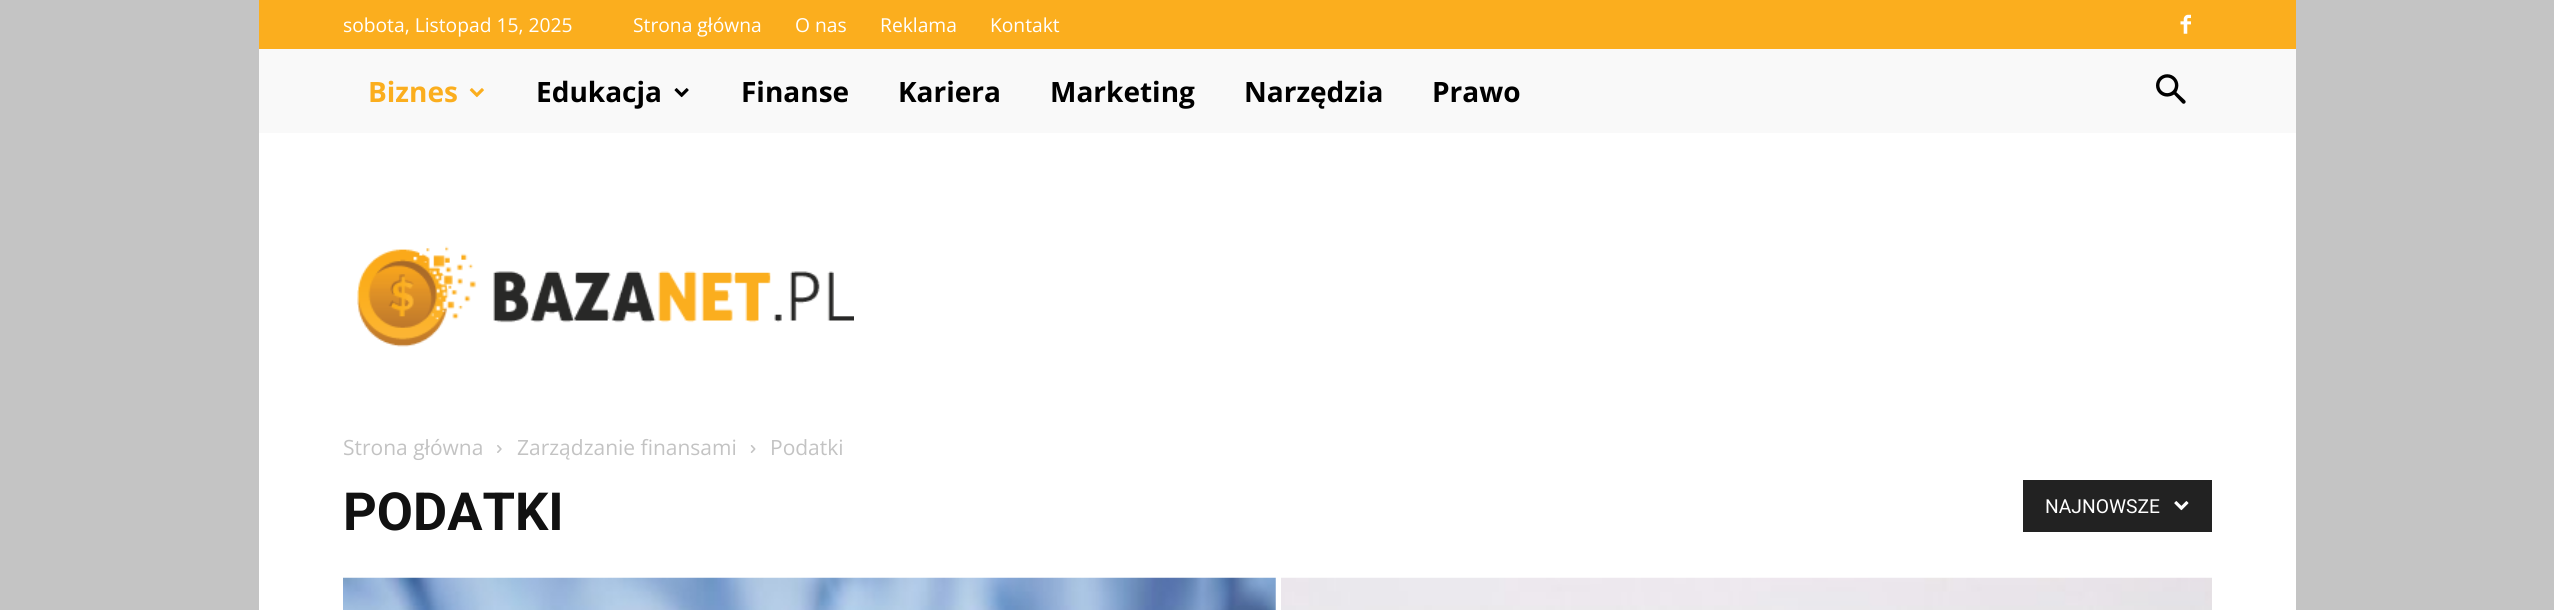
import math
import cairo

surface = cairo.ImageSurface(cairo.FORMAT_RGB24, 2554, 610)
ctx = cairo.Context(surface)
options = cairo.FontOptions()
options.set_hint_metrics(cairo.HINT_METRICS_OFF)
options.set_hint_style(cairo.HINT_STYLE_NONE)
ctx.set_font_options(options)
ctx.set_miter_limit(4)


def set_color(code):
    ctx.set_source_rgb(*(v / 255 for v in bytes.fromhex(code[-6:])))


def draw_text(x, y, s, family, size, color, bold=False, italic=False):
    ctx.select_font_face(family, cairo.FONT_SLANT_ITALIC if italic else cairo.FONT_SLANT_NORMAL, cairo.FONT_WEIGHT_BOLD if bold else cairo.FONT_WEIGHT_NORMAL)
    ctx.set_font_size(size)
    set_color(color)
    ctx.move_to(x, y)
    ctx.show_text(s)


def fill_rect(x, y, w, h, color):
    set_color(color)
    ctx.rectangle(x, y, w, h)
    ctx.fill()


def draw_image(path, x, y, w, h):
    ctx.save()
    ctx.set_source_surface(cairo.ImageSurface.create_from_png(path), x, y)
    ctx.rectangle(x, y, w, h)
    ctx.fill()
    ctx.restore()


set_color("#c4c4c4")
ctx.paint()
fill_rect(259, 0, 2037, 49, "#fbae1e")
draw_text(343, 32, "sobota, Listopad 15, 2025", "Open Sans", 19.25, "#ffffff")
draw_text(633, 32, "Strona główna", "Open Sans", 19.25, "#ffffff")
draw_text(795, 32, "O nas", "Open Sans", 19.25, "#ffffff")
draw_text(880, 32, "Reklama", "Open Sans", 19.25, "#ffffff")
draw_text(990, 32, "Kontakt", "Open Sans", 19.25, "#ffffff")
draw_image("assets/img1.png", 2180, 14, 11, 20)
fill_rect(259, 49, 2037, 84, "#f9f9f9")
draw_text(368, 102, "Biznes", "Open Sans", 28, "#fbae1e", bold=True)
draw_image("assets/img2.png", 469, 88, 15, 10)
draw_text(536, 102, "Edukacja", "Open Sans", 28, "#000000", bold=True)
draw_image("assets/img3.png", 674, 88, 15, 10)
draw_text(741, 102, "Finanse", "Open Sans", 28, "#000000", bold=True)
draw_text(898, 102, "Kariera", "Open Sans", 28, "#000000", bold=True)
draw_text(1050, 102, "Marketing", "Open Sans", 28, "#000000", bold=True)
draw_text(1244, 102, "Narzędzia", "Open Sans", 28, "#000000", bold=True)
draw_text(1432, 102, "Prawo", "Open Sans", 28, "#000000", bold=True)
draw_image("assets/img4.png", 2156, 74, 30, 30)
fill_rect(259, 133, 2037, 477, "#ffffff")
draw_image("assets/img5.png", 357, 246, 497, 101)
draw_text(343, 455, "Strona główna", "Open Sans", 21, "#c3c3c3")
draw_image("assets/img6.png", 497, 445, 5, 8)
draw_text(517, 455, "Zarządzanie finansami", "Open Sans", 21, "#c3c3c3")
draw_image("assets/img7.png", 750, 445, 6, 8)
draw_text(770, 455, "Podatki", "Open Sans", 21, "#c3c3c3")
draw_text(343, 530, "PODATKI", "Roboto", 52.5, "#111111", bold=True)
fill_rect(2023, 480, 189, 52, "#222222")
draw_text(2045, 513, "NAJNOWSZE", "Roboto", 19.25, "#ffffff")
draw_image("assets/img8.png", 2174, 501, 15, 10)
draw_image("assets/img9.png", 343, 577, 933, 33)
draw_image("assets/img10.png", 1281, 577, 931, 33)
surface.write_to_png("output.png")
